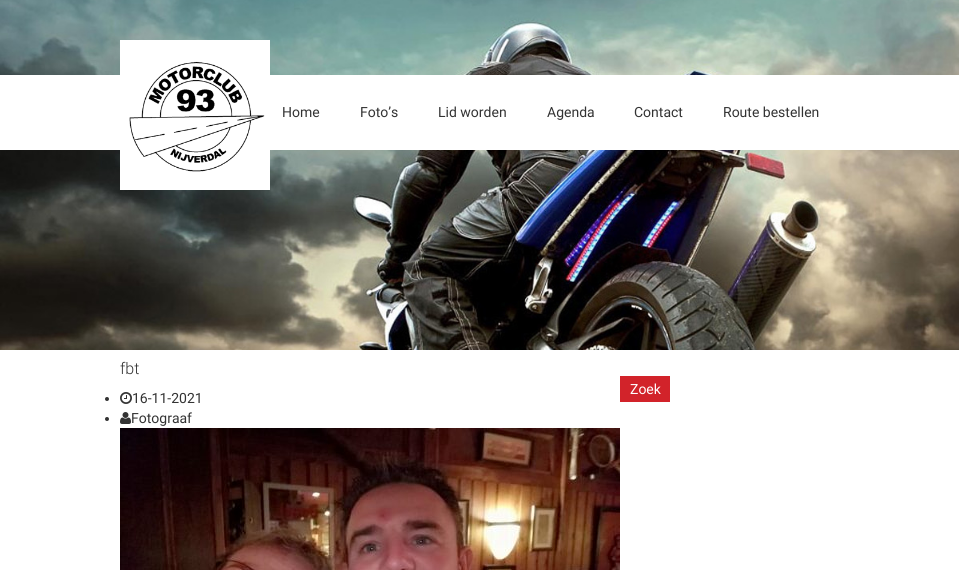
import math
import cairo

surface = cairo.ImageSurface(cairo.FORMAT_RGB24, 959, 570)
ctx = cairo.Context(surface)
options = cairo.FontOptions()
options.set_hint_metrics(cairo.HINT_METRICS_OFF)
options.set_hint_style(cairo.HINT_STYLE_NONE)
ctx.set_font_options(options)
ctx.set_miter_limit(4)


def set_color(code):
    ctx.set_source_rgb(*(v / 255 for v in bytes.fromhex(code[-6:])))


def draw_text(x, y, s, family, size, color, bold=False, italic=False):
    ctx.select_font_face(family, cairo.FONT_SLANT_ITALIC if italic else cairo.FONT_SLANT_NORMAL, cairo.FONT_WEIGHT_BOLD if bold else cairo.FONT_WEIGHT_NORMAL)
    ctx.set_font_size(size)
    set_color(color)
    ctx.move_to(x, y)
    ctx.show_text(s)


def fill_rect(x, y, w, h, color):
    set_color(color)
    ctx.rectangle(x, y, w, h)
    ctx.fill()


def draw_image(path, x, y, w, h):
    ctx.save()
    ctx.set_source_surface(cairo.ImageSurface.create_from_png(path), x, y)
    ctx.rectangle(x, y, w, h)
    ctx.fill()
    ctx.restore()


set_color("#ffffff")
ctx.paint()
draw_image("assets/img1.png", 0, 0, 959, 350)
fill_rect(0, 75, 959, 75, "#ffffff")
draw_image("assets/img2.png", 120, 40, 150, 150)
draw_text(282, 117, "Home", "Roboto", 14, "#333333")
draw_text(360, 117, "Foto’s", "Roboto", 14, "#333333")
draw_text(438, 117, "Lid worden", "Roboto", 14, "#333333")
draw_text(547, 117, "Agenda", "Roboto", 14, "#333333")
draw_text(634, 117, "Contact", "Roboto", 14, "#333333")
draw_text(723, 117, "Route bestellen", "Roboto", 14, "#333333")
draw_text(120, 374, "fbt", "Roboto Light", 16, "#333333")
ctx.new_path()
ctx.arc(107, 399, 2, 0, 2 * math.pi)
ctx.fill()
draw_image("assets/img3.png", 120, 392, 12, 12)
draw_text(132, 403, "16-11-2021", "Roboto", 14, "#333333")
ctx.new_path()
ctx.arc(107, 419, 2, 0, 2 * math.pi)
ctx.fill()
draw_image("assets/img4.png", 120, 412, 11, 12)
draw_text(131, 423, "Fotograaf", "Roboto", 14, "#333333")
draw_image("assets/img5.png", 120, 428, 500, 142)
fill_rect(620, 376, 50, 26, "#d2232a")
draw_text(630, 394, "Zoek", "Roboto", 14, "#ffffff")
surface.write_to_png("output.png")
